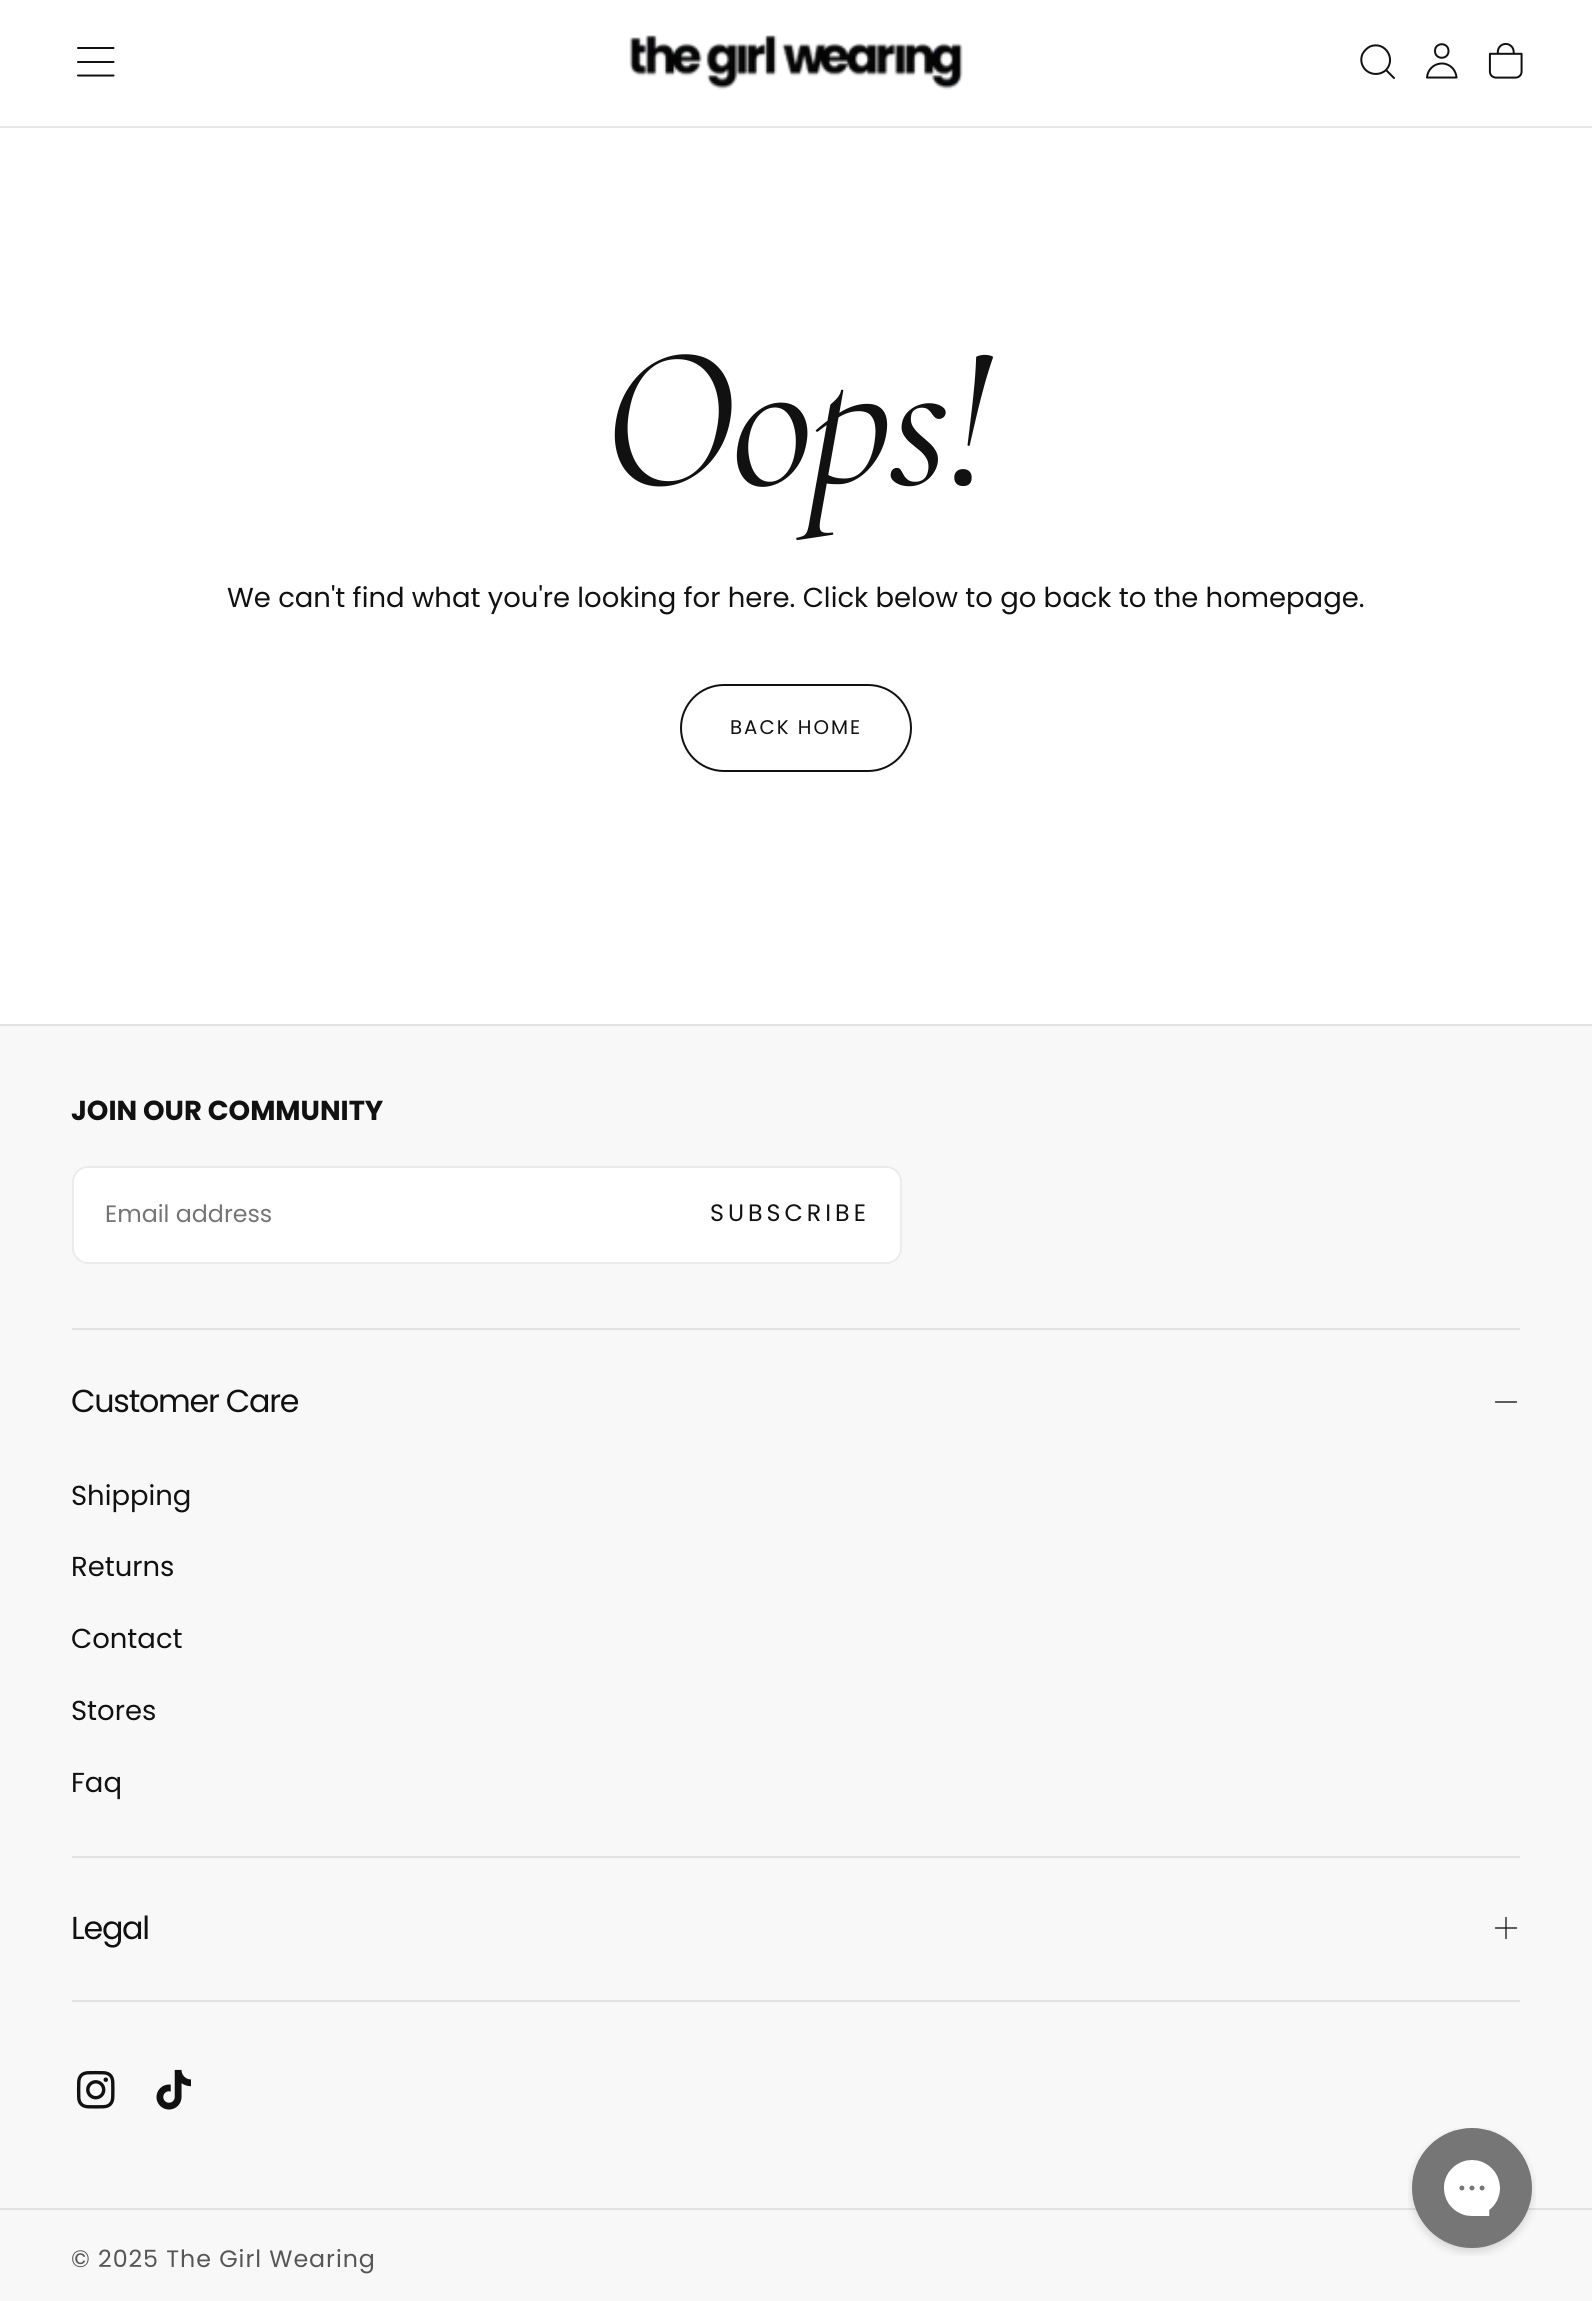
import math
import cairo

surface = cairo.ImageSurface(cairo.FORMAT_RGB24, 1592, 2301)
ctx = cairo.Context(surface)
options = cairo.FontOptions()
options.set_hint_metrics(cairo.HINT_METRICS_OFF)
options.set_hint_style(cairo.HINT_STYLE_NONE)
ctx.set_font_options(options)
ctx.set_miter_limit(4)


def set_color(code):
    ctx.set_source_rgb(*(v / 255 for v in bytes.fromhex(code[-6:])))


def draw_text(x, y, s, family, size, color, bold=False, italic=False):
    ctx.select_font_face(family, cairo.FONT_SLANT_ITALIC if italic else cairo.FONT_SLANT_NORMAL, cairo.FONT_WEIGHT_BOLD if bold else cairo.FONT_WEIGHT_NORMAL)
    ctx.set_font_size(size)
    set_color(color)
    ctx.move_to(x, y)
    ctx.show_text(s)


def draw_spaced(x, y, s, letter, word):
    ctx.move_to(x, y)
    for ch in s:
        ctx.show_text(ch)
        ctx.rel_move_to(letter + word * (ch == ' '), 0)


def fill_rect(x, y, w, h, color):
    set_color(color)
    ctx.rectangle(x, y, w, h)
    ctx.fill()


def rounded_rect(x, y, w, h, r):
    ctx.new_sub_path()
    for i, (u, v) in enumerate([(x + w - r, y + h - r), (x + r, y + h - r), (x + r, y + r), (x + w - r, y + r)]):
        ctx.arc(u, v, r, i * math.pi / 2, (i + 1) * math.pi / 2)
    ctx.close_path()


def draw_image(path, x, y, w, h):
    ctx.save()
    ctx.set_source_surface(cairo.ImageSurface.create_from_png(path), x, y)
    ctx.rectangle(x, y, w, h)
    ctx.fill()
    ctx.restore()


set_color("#ffffff")
ctx.paint()
fill_rect(0, 126, 1592, 2, "#e7e7e7")
ctx.new_path()
ctx.move_to(78, 62)
ctx.line_to(113.5, 62)
ctx.move_to(78, 48)
ctx.line_to(113.5, 48)
ctx.move_to(78, 75.5)
ctx.line_to(113.5, 75.5)
set_color("#111111")
ctx.set_line_cap(cairo.LINE_CAP_ROUND)
ctx.stroke()
draw_image("assets/img1.png", 629, 35, 334, 55)
ctx.new_path()
ctx.move_to(1394, 78)
ctx.line_to(1386, 70)
ctx.move_to(1386, 70)
ctx.curve_to(1396.5, 59, 1385, 40.5, 1370, 46.5)
ctx.curve_to(1367, 48, 1364, 51, 1362.5, 54)
ctx.curve_to(1360.5, 58.5, 1361, 64, 1364, 68)
ctx.curve_to(1369, 75, 1379.5, 76, 1386, 70)
ctx.close_path()
ctx.set_line_join(cairo.LINE_JOIN_ROUND)
ctx.stroke()
ctx.new_path()
ctx.move_to(1448.5, 51)
ctx.curve_to(1448.5, 60, 1435, 60, 1435, 51)
ctx.curve_to(1435, 42, 1448.5, 42, 1448.5, 51)
ctx.close_path()
ctx.move_to(1442, 63.5)
ctx.curve_to(1433.5, 63.5, 1427.5, 70, 1427, 77.5)
ctx.line_to(1456.5, 77.5)
ctx.curve_to(1456, 70, 1450, 63.5, 1442, 63.5)
ctx.close_path()
ctx.set_line_cap(cairo.LINE_CAP_BUTT)
ctx.stroke()
draw_image("assets/img2.png", 1488, 42, 35, 37)
ctx.select_font_face("Cormorant", cairo.FONT_SLANT_ITALIC)
ctx.set_font_size(204)
draw_spaced(602, 484, "Oops!", -3.5, 0)
draw_text(227, 607, "We can't find what you're looking for here. Click below to go back to the homepage.", "Poppins", 27.45, "#111111")
rounded_rect(681, 685, 230, 86, 43)
ctx.set_line_join(cairo.LINE_JOIN_MITER)
ctx.stroke()
ctx.set_font_size(19.75)
draw_spaced(730, 734, "BACK HOME", 2, 0)
fill_rect(0, 1026, 1592, 1275, "#f8f8f8")
fill_rect(0, 1024, 1592, 2, "#e1e1e1")
draw_text(71, 1120, "JOIN OUR COMMUNITY", "Poppins", 27.45, "#111111", bold=True)
rounded_rect(73, 1167, 828, 96, 15)
set_color("#ebebeb")
ctx.stroke()
set_color("#ffffff")
ctx.new_path()
ctx.move_to(88, 1168)
ctx.line_to(678, 1168)
ctx.line_to(678, 1262)
ctx.line_to(88, 1262)
ctx.curve_to(80.5, 1262, 74, 1255.5, 74, 1248)
ctx.line_to(74, 1182)
ctx.curve_to(74, 1174.5, 80.5, 1168, 88, 1168)
ctx.close_path()
ctx.fill()
draw_text(105, 1222, "Email address", "Poppins", 23.75, "#757575")
set_color("#ffffff")
ctx.new_path()
ctx.move_to(678, 1168)
ctx.line_to(886, 1168)
ctx.curve_to(893.5, 1168, 900, 1174.5, 900, 1182)
ctx.line_to(900, 1248)
ctx.curve_to(900, 1255.5, 893.5, 1262, 886, 1262)
ctx.line_to(678, 1262)
ctx.close_path()
ctx.fill()
set_color("#111111")
draw_spaced(710, 1221, "SUBSCRIBE", 4, 0)
fill_rect(72, 1328, 1448, 2, "#e1e1e1")
fill_rect(72, 1856, 1448, 2, "#e1e1e1")
ctx.set_font_size(31.75)
set_color("#111111")
draw_spaced(71, 1412, "Customer Care", -1.25, 0)
ctx.new_path()
ctx.move_to(1495.5, 1402)
ctx.line_to(1516.5, 1402)
ctx.set_line_width(1.3)
ctx.set_line_cap(cairo.LINE_CAP_ROUND)
ctx.stroke()
draw_text(71, 1505, "Shipping", "Poppins", 27.45, "#111111")
draw_text(71, 1576, "Returns", "Poppins", 27.45, "#111111")
draw_text(71, 1648, "Contact", "Poppins", 27.45, "#111111")
draw_text(71, 1720, "Stores", "Poppins", 27.45, "#111111")
draw_text(71, 1792, "Faq", "Poppins", 27.45, "#111111")
fill_rect(72, 2000, 1448, 2, "#e1e1e1")
ctx.set_font_size(31.75)
set_color("#111111")
draw_spaced(71, 1939, "Legal", -1.25, 0)
ctx.new_path()
ctx.move_to(1506, 1917.5)
ctx.line_to(1506, 1928)
ctx.move_to(1506, 1928)
ctx.line_to(1506, 1938.5)
ctx.move_to(1506, 1928)
ctx.line_to(1495.5, 1928)
ctx.move_to(1506, 1928)
ctx.line_to(1516.5, 1928)
ctx.stroke()
draw_image("assets/img3.png", 76, 2070, 39, 39)
draw_image("assets/img4.png", 156, 2069, 35, 41)
fill_rect(0, 2208, 1592, 2, "#e1e1e1")
ctx.set_font_size(23.75)
set_color("#565656")
draw_spaced(71, 2267, "© 2025 The Girl Wearing", 0.95, 0)
draw_image("assets/img5.png", 1408, 2128, 128, 128)
surface.write_to_png("output.png")
